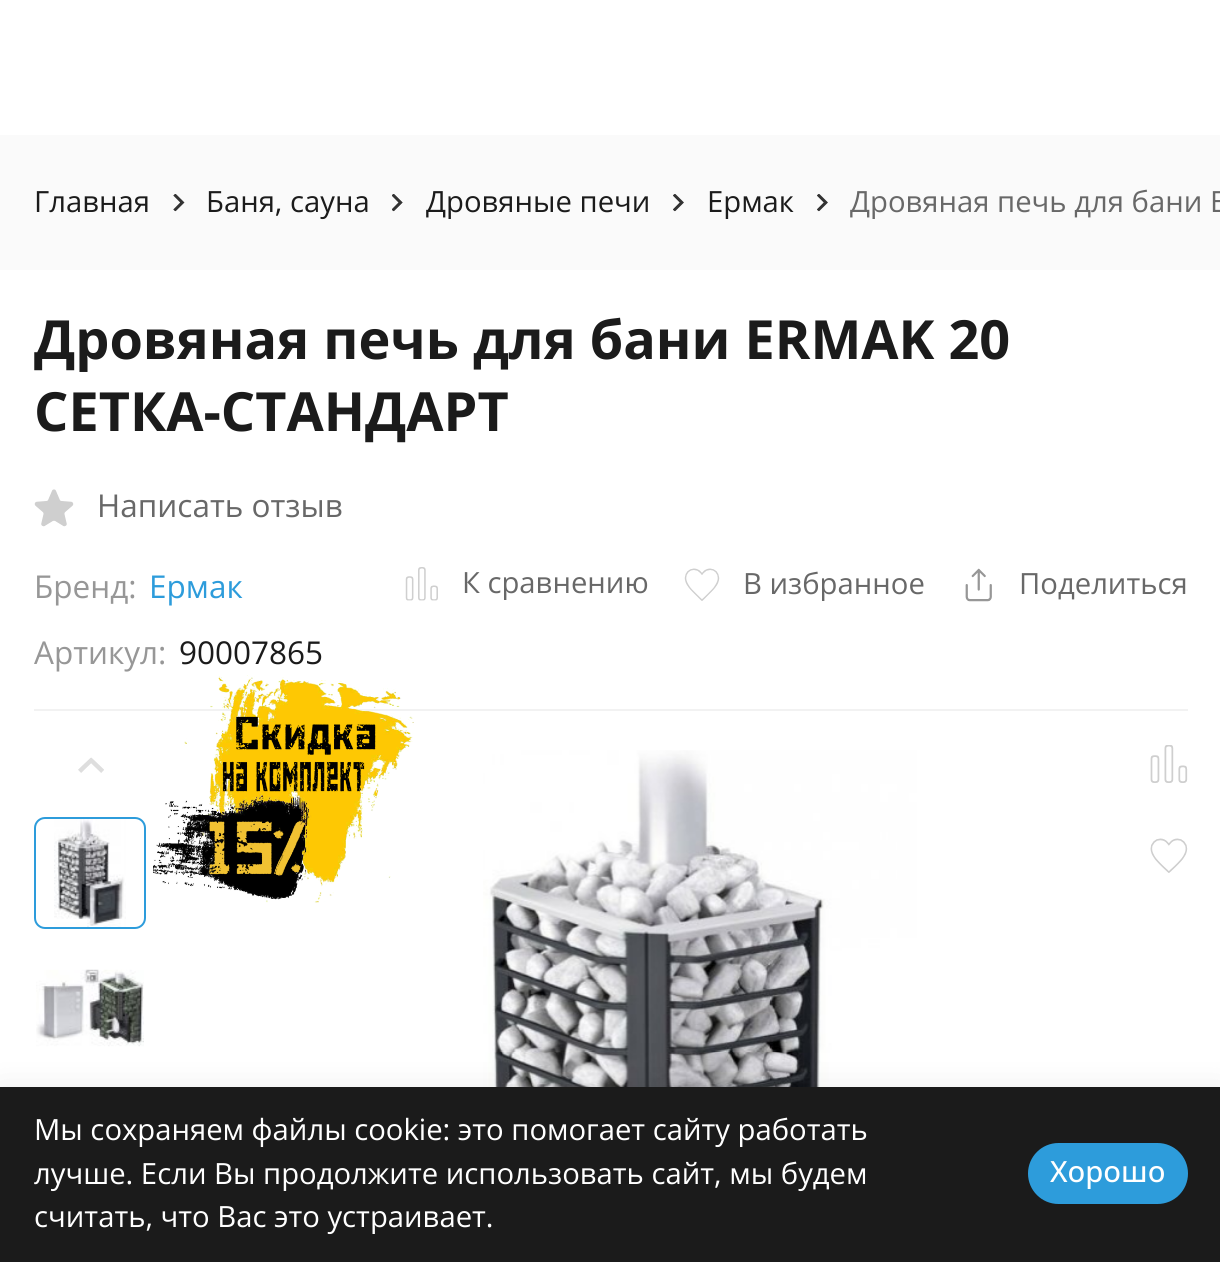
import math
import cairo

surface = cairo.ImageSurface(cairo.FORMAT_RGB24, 1220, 1262)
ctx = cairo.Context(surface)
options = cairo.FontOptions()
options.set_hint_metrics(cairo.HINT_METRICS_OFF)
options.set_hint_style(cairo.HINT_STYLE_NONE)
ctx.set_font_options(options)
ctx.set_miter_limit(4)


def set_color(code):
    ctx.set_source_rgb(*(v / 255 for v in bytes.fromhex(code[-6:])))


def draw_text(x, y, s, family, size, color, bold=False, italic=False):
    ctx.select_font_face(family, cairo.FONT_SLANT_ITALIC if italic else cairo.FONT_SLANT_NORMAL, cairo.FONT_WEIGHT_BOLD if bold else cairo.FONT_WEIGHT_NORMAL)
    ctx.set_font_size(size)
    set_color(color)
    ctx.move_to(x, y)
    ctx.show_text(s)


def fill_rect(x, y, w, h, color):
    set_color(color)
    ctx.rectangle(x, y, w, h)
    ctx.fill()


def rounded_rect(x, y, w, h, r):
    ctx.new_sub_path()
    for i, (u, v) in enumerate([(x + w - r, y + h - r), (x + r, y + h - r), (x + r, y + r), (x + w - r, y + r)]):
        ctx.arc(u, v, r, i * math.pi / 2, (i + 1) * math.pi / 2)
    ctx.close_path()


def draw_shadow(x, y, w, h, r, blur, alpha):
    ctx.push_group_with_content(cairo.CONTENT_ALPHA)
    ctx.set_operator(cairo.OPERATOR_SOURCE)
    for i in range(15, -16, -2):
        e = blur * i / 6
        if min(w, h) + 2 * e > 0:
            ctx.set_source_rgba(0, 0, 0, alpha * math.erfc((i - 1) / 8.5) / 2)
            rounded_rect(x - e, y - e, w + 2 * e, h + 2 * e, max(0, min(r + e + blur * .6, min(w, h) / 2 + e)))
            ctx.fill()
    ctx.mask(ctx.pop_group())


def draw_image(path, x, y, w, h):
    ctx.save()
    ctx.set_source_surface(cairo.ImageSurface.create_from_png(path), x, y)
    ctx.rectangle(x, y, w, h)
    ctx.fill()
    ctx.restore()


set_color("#ffffff")
ctx.paint()
fill_rect(0, 135, 1220, 135, "#fafafa")
draw_text(34, 212, "Главная", "Open Sans", 29.25, "#1b1b1b")
draw_image("assets/img1.png", 173, 194, 12, 18)
draw_text(206, 212, "Баня, сауна", "Open Sans", 29.25, "#1b1b1b")
draw_image("assets/img2.png", 392, 194, 11, 18)
draw_text(426, 212, "Дровяные печи", "Open Sans", 29.25, "#1b1b1b")
draw_image("assets/img3.png", 673, 194, 11, 18)
draw_text(707, 212, "Ермак", "Open Sans", 29.25, "#1b1b1b")
draw_image("assets/img3.png", 817, 194, 11, 18)
draw_text(850, 212, "Дровяная печь для бани E", "Open Sans", 29.25, "#686868")
fill_rect(34, 709, 1154, 2, "#f2f2f2")
draw_text(34, 359, "Дровяная печь для бани ERMAK 20", "Open Sans", 54, "#1b1b1b", bold=True)
draw_text(34, 431, "СЕТКА-СТАНДАРТ", "Open Sans", 54, "#1b1b1b", bold=True)
draw_image("assets/img4.png", 34, 489, 40, 38)
draw_text(97, 517, "Написать отзыв", "Open Sans", 31.5, "#686868")
draw_text(34, 598, "Бренд:", "Open Sans", 31.5, "#979797")
draw_text(149, 598, "Ермак", "Open Sans", 31.5, "#2d9cdb")
draw_image("assets/img5.png", 405, 567, 33, 34)
draw_text(462, 593, "К сравнению", "Open Sans", 29.25, "#686868")
draw_image("assets/img6.png", 684, 568, 36, 33)
draw_text(743, 594, "В избранное", "Open Sans", 29.25, "#686868")
draw_image("assets/img7.png", 965, 568, 27, 34)
draw_text(1019, 594, "Поделиться", "Open Sans", 29.25, "#686868")
draw_text(34, 664, "Артикул:", "Open Sans", 31.5, "#979797")
draw_text(179, 664, "90007865", "Open Sans", 31.5, "#1b1b1b")
draw_image("assets/img8.png", 78, 757, 26, 16)
rounded_rect(35, 818, 110, 110, 10)
set_color("#2d9cdb")
ctx.stroke()
draw_image("assets/img9.png", 54, 819, 72, 108)
draw_image("assets/img10.png", 36, 969, 108, 78)
draw_image("assets/img11.png", 153, 675, 261, 228)
draw_image("assets/img12.png", 483, 750, 434, 337)
draw_image("assets/img13.png", 1150, 745, 38, 38)
draw_image("assets/img14.png", 1150, 838, 38, 35)
set_color("#000000")
draw_shadow(0, 1087, 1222, 175, 0, 17, 0.07)
fill_rect(0, 1087, 1220, 175, "#1b1b1b")
draw_text(34, 1140, "Мы сохраняем файлы cookie: это помогает сайту работать", "Open Sans", 29.25, "#ffffff")
draw_text(34, 1184, "лучше. Если Вы продолжите использовать сайт, мы будем", "Open Sans", 29.25, "#ffffff")
draw_text(34, 1227, "считать, что Вас это устраивает.", "Open Sans", 29.25, "#ffffff")
set_color("#2d9cdb")
rounded_rect(1028, 1143, 160, 61, 30.5)
ctx.fill()
draw_text(1050, 1182, "Хорошо", "Open Sans Medium", 29.25, "#ffffff")
surface.write_to_png("output.png")
